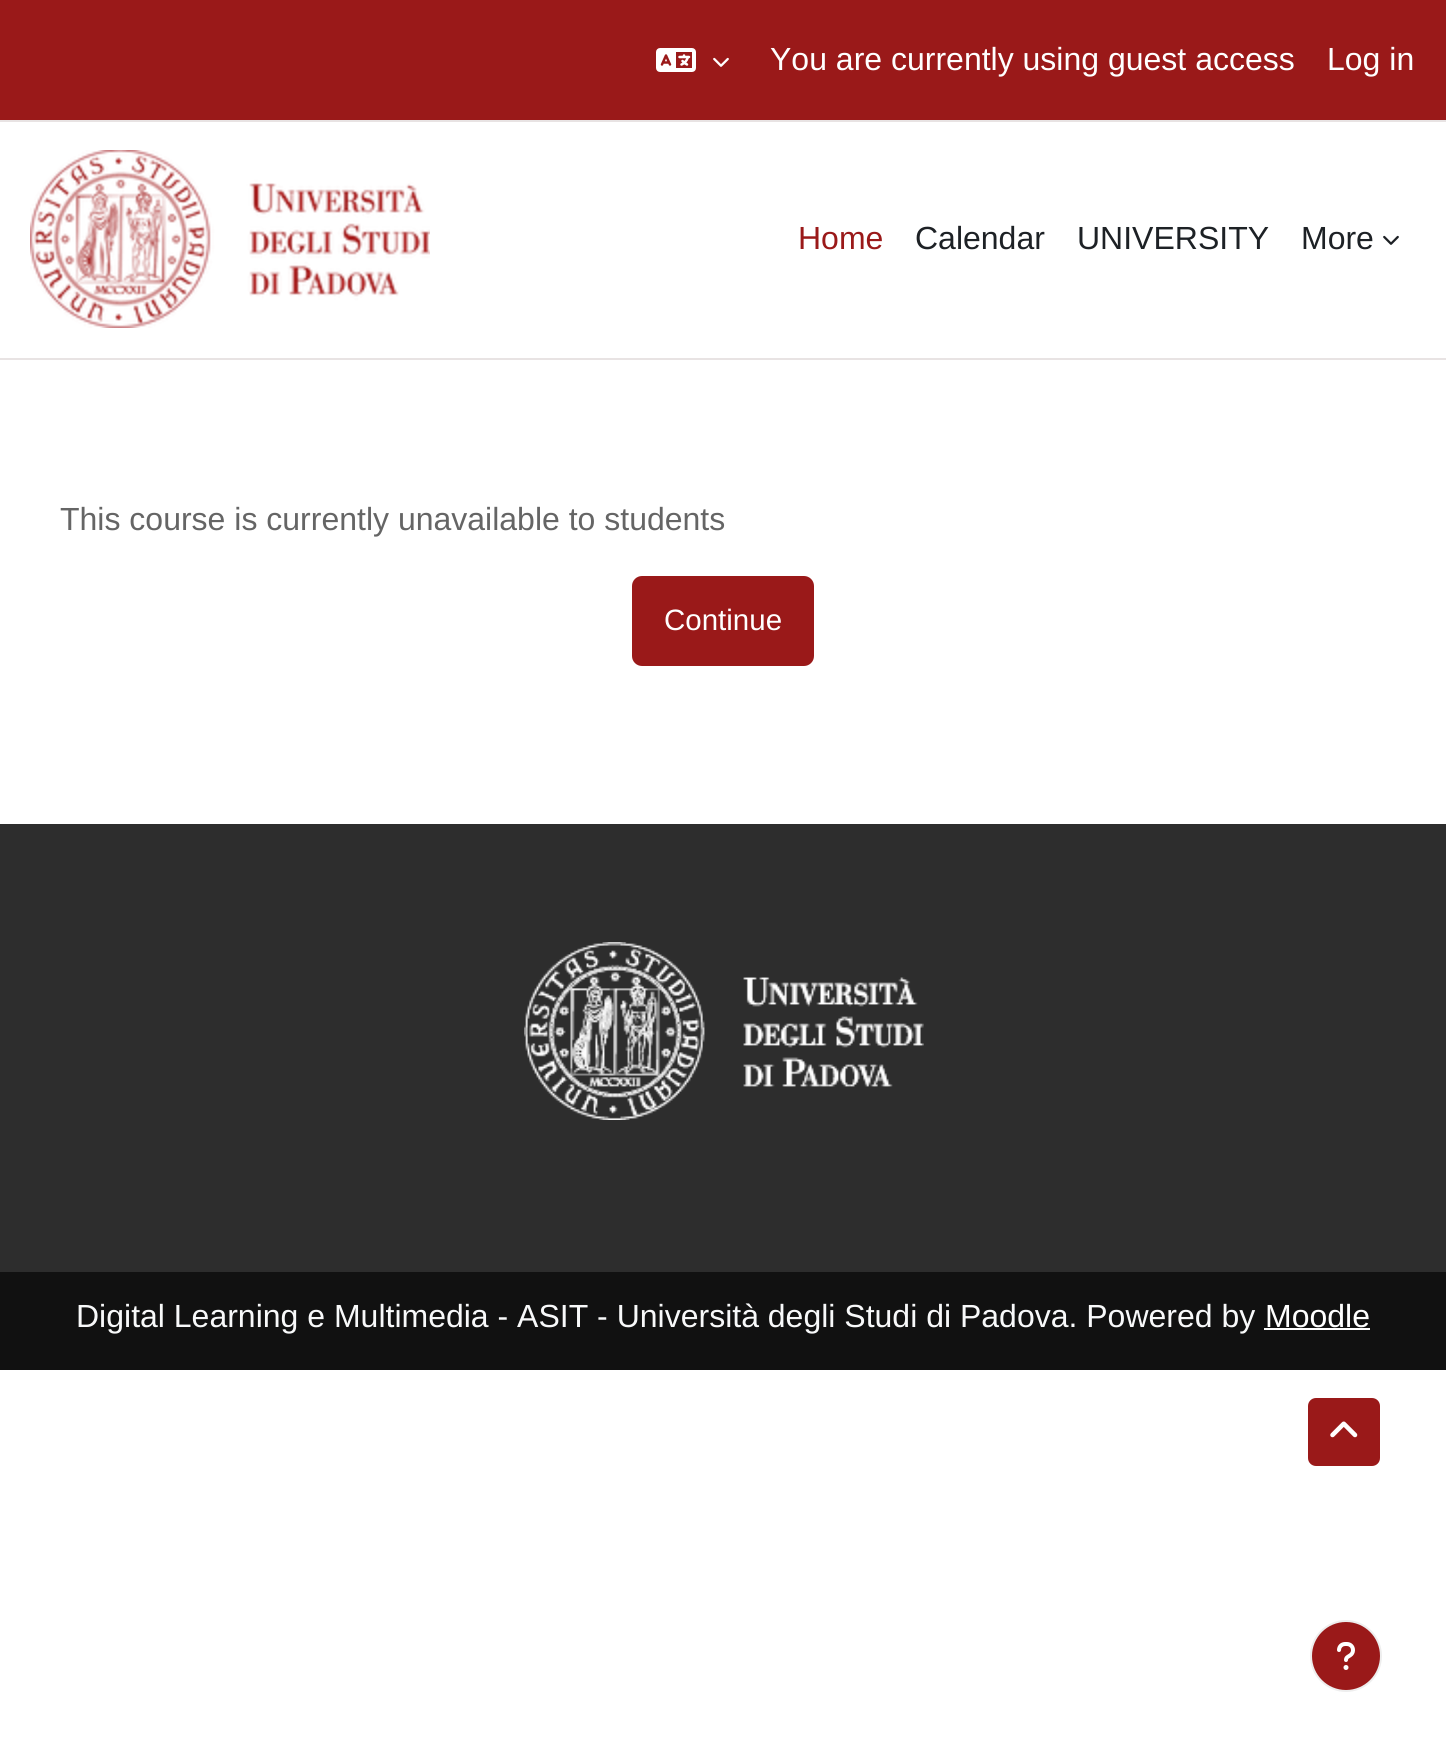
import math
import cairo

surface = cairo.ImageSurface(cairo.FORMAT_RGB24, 1446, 1755)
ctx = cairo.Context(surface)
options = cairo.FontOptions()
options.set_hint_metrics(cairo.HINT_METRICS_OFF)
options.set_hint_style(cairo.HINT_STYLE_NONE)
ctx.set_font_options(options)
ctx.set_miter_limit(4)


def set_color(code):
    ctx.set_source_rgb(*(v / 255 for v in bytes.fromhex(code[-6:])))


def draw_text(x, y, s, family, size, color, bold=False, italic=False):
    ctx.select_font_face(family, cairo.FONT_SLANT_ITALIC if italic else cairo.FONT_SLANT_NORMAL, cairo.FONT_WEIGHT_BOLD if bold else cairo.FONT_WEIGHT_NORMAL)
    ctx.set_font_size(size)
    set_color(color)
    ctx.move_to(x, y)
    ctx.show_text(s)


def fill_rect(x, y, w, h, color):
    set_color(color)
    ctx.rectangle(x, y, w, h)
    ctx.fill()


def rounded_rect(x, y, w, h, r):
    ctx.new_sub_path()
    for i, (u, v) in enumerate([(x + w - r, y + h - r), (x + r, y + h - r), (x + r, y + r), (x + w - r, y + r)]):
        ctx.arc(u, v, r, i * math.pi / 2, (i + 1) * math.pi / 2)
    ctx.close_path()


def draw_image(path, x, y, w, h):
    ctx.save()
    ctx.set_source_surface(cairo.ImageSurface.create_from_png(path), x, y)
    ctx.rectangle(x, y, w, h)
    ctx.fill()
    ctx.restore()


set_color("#ffffff")
ctx.paint()
fill_rect(0, 0, 1446, 120, "#9a1919")
fill_rect(0, 120, 1446, 2, "#e8e3e3")
draw_image("assets/img1.png", 656, 48, 40, 24)
draw_image("assets/img2.png", 713, 57, 16, 10)
draw_text(770, 70, "You are currently using guest access", "Liberation Sans", 32, "#ffffff")
draw_text(1327, 70, "Log in", "Liberation Sans", 32, "#ffffff")
fill_rect(0, 358, 1446, 2, "#e8e3e3")
draw_image("assets/img3.png", 30, 150, 400, 178)
draw_text(798, 249, "Home", "Liberation Sans", 32, "#9a1919")
draw_text(915, 249, "Calendar", "Liberation Sans", 32, "#1d2125")
draw_text(1077, 249, "UNIVERSITY", "Liberation Sans", 32, "#1d2125")
draw_text(1301, 249, "More", "Liberation Sans", 32, "#1d2125")
draw_image("assets/img4.png", 1383, 235, 16, 10)
draw_text(60, 530, "This course is currently unavailable to students", "Liberation Sans", 32, "#656565")
set_color("#9a1919")
rounded_rect(632, 576, 182, 90, 10)
ctx.fill()
draw_text(664, 630, "Continue", "Liberation Sans", 29.5, "#ffffff")
fill_rect(0, 824, 1446, 448, "#2d2d2d")
draw_image("assets/img5.png", 524, 942, 400, 178)
fill_rect(0, 1272, 1446, 98, "#111111")
draw_text(76, 1327, "Digital Learning e Multimedia - ASIT - Università degli Studi di Padova. Powered by", "Liberation Sans", 32, "#f8f9fa")
draw_text(1265, 1327, "Moodle", "Liberation Sans", 32, "#ffffff")
fill_rect(1264, 1328, 106, 2, "#ffffff")
set_color("#9a1919")
ctx.new_path()
ctx.arc(1346, 1656, 35, 0, 2 * math.pi)
ctx.fill_preserve()
set_color("#eeeeee")
ctx.stroke()
draw_image("assets/img6.png", 1337, 1642, 18, 28)
set_color("#9a1919")
rounded_rect(1307, 1397, 74, 70, 9)
ctx.fill_preserve()
set_color("#ffffff")
ctx.stroke()
draw_image("assets/img7.png", 1330, 1421, 28, 17)
surface.write_to_png("output.png")
